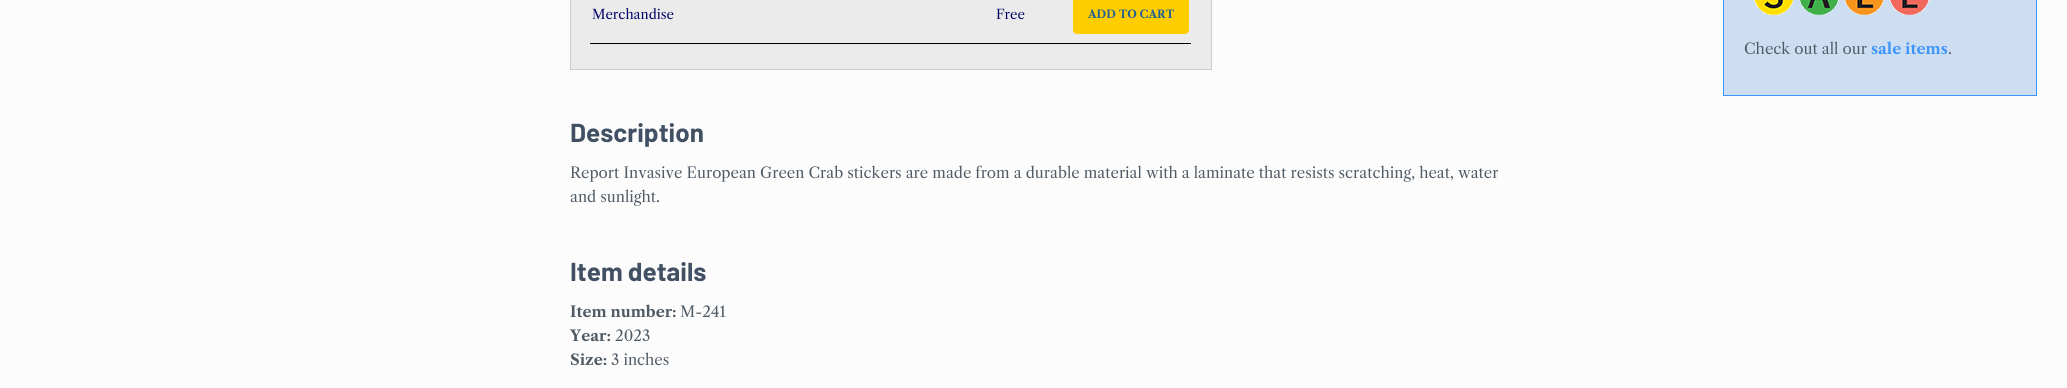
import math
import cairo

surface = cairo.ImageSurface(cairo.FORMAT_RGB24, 2067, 388)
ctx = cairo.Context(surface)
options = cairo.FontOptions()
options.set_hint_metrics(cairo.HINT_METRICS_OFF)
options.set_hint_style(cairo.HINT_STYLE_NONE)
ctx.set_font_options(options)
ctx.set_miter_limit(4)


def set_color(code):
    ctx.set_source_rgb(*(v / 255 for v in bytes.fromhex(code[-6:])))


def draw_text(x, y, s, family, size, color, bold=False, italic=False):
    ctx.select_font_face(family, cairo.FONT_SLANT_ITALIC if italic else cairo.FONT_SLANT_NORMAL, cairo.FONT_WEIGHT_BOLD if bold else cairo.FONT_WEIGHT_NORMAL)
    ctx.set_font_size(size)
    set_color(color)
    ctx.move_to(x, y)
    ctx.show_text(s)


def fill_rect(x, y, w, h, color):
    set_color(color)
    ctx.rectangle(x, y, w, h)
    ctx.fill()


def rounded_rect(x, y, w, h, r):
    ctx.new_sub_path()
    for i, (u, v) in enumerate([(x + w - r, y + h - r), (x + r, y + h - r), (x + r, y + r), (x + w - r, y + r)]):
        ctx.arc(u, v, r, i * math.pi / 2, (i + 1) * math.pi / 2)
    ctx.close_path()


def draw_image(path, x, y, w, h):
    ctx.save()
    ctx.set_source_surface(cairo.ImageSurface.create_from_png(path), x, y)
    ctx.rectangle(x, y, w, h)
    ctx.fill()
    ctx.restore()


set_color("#fcfcfc")
ctx.paint()
set_color("#ebebeb")
ctx.rectangle(570.5, -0.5, 641, 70)
ctx.fill_preserve()
set_color("#cccccc")
ctx.set_line_width(1)
ctx.stroke()
fill_rect(590, 43, 601, 1, "#000000")
draw_text(592, 19, "Merchandise", "Libre Caslon Text", 13.25, "#000066")
draw_text(996, 19, "Free", "Libre Caslon Text", 13.25, "#000066")
set_color("#ffcd00")
rounded_rect(1073, -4, 116, 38, 4)
ctx.fill()
draw_text(1088, 18, "ADD TO CART", "Libre Caslon Text", 11, "#236192", bold=True)
draw_text(570, 142, "Description", "Barlow", 26, "#425064", bold=True)
draw_text(570, 178, "Report Invasive European Green Crab stickers are made from a durable material with a laminate that resists scratching, heat, water", "Libre Caslon Text", 15, "#4f5a65")
draw_text(570, 202, "and sunlight.", "Libre Caslon Text", 15, "#4f5a65")
draw_text(570, 281, "Item details", "Barlow", 26, "#425064", bold=True)
draw_text(570, 317, "Item number:", "Libre Caslon Text", 15, "#4f5a65", bold=True)
draw_text(680, 317, "M-241", "Libre Caslon Text", 15, "#4f5a65")
draw_text(570, 341, "Year:", "Libre Caslon Text", 15, "#4f5a65", bold=True)
draw_text(615, 341, "2023", "Libre Caslon Text", 15, "#4f5a65")
draw_text(570, 365, "Size:", "Libre Caslon Text", 15, "#4f5a65", bold=True)
draw_text(611, 365, "3 inches", "Libre Caslon Text", 15, "#4f5a65")
set_color("#cddef2")
ctx.rectangle(1723.5, -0.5, 313, 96)
ctx.fill_preserve()
set_color("#3e95f9")
ctx.stroke()
draw_image("assets/img1.png", 1754, 0, 176, 15)
draw_text(1744, 54, "Check out all our", "Libre Caslon Text", 15, "#4f5a65")
draw_text(1871, 54, "sale items", "Libre Caslon Text", 15, "#3e95f9", bold=True)
draw_text(1948, 54, ".", "Libre Caslon Text", 15, "#4f5a65")
surface.write_to_png("output.png")
